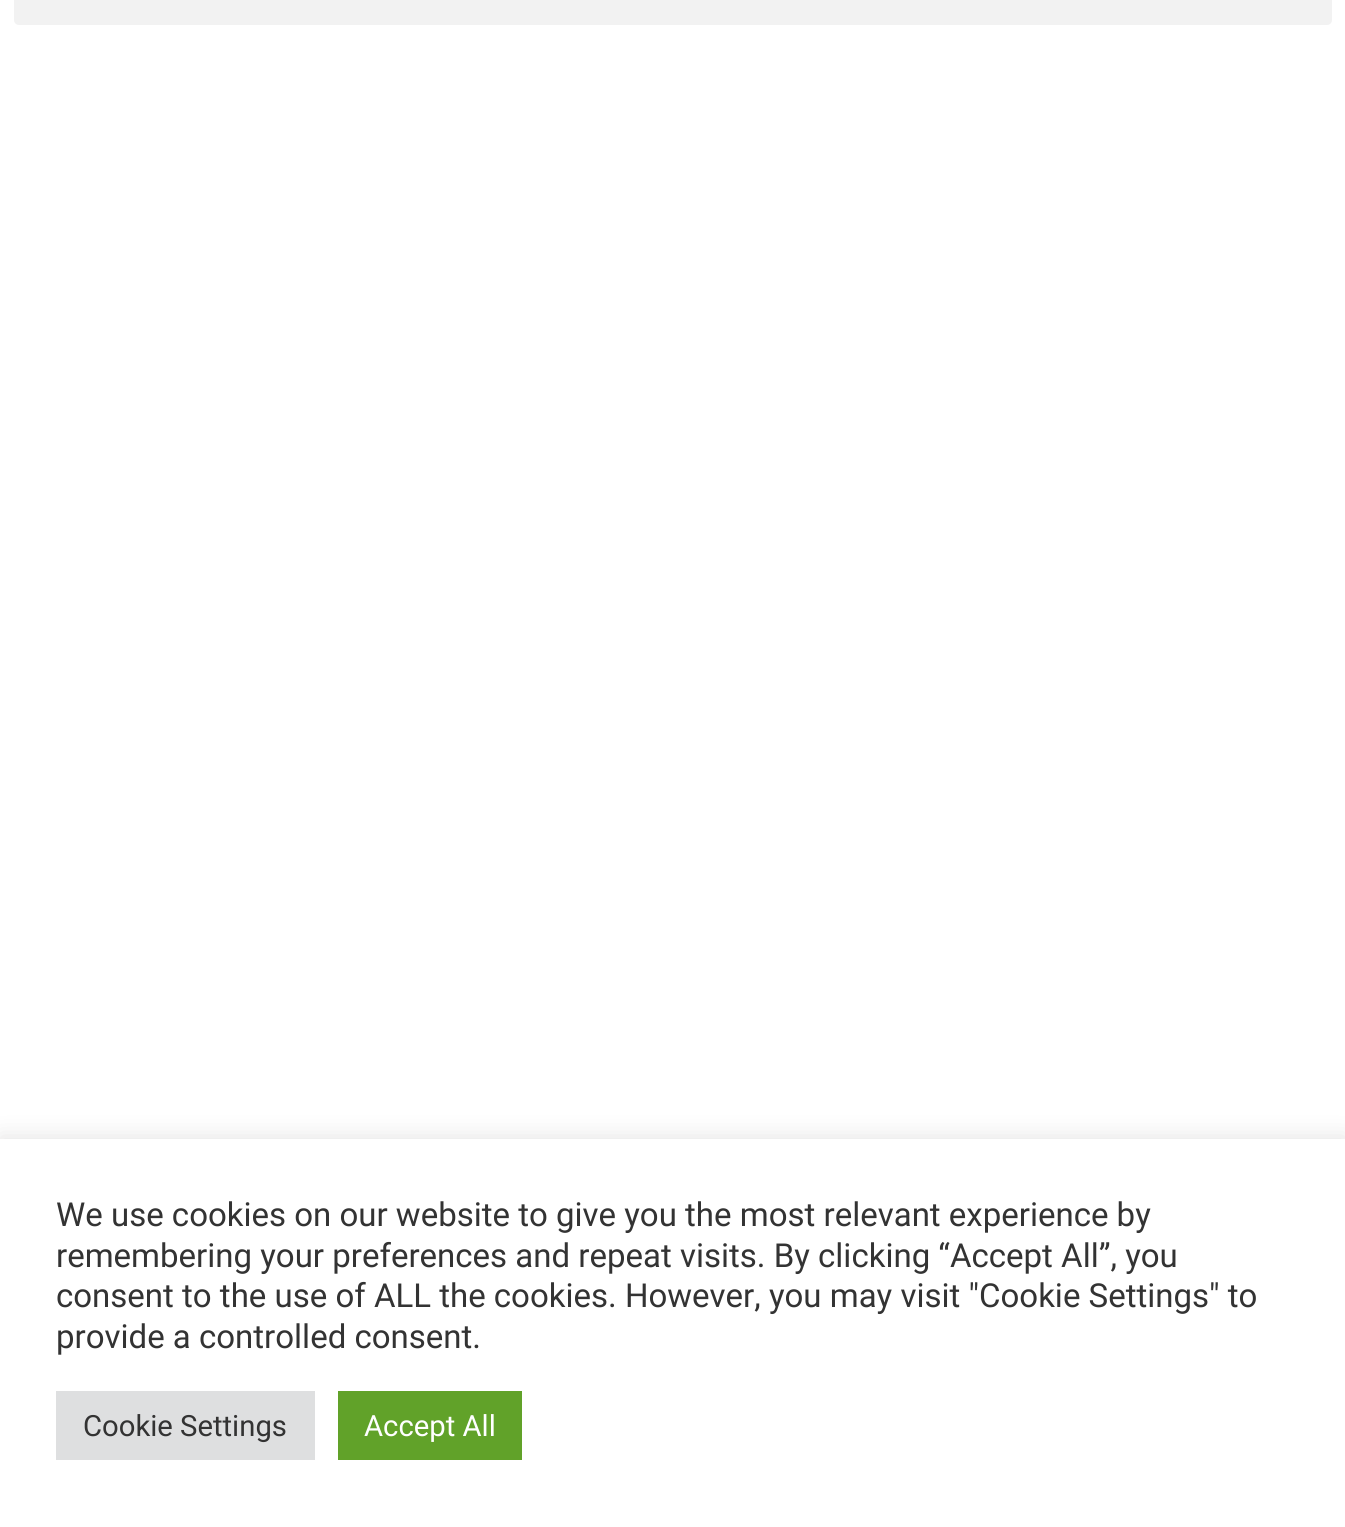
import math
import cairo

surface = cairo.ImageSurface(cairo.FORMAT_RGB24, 1345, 1527)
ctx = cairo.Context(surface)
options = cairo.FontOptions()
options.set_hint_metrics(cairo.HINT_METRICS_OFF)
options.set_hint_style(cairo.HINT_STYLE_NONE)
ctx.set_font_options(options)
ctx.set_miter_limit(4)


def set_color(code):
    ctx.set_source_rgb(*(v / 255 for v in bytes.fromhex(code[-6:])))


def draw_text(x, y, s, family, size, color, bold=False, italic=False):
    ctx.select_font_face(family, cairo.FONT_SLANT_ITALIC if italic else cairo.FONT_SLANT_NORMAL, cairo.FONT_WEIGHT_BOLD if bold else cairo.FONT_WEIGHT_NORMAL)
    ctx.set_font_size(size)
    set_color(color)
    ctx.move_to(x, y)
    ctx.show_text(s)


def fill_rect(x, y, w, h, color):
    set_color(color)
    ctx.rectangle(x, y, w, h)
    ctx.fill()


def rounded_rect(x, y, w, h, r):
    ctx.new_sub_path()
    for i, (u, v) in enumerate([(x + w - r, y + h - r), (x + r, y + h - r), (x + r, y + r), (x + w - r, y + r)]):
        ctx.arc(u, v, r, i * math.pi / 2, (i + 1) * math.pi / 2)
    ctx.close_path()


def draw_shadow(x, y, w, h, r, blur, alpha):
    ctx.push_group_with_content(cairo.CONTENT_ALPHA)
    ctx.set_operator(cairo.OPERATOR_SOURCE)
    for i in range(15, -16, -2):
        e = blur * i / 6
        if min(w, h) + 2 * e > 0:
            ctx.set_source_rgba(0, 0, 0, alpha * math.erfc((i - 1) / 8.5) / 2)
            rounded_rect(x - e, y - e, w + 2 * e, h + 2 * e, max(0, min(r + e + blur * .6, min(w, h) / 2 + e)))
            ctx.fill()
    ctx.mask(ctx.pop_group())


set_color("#ffffff")
ctx.paint()
set_color("#f2f2f2")
rounded_rect(14, -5, 1318, 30, 5)
ctx.fill()
set_color("#acabab")
draw_shadow(0, 1136, 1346, 390, 0, 11, 0.3)
fill_rect(0, 1139, 1345, 388, "#ffffff")
draw_text(56, 1226, "We use cookies on our website to give you the most relevant experience by", "Roboto", 33, "#333333")
draw_text(56, 1267, "remembering your preferences and repeat visits. By clicking “Accept All”, you", "Roboto", 33, "#333333")
draw_text(56, 1307, "consent to the use of ALL the cookies. However, you may visit \"Cookie Settings\" to", "Roboto", 33, "#333333")
draw_text(56, 1348, "provide a controlled consent.", "Roboto", 33, "#333333")
fill_rect(56, 1391, 259, 69, "#dedfe0")
draw_text(83, 1436, "Cookie Settings", "Roboto", 29.25, "#333333")
fill_rect(338, 1391, 184, 69, "#61a229")
draw_text(364, 1436, "Accept All", "Roboto", 29.25, "#ffffff")
surface.write_to_png("output.png")
